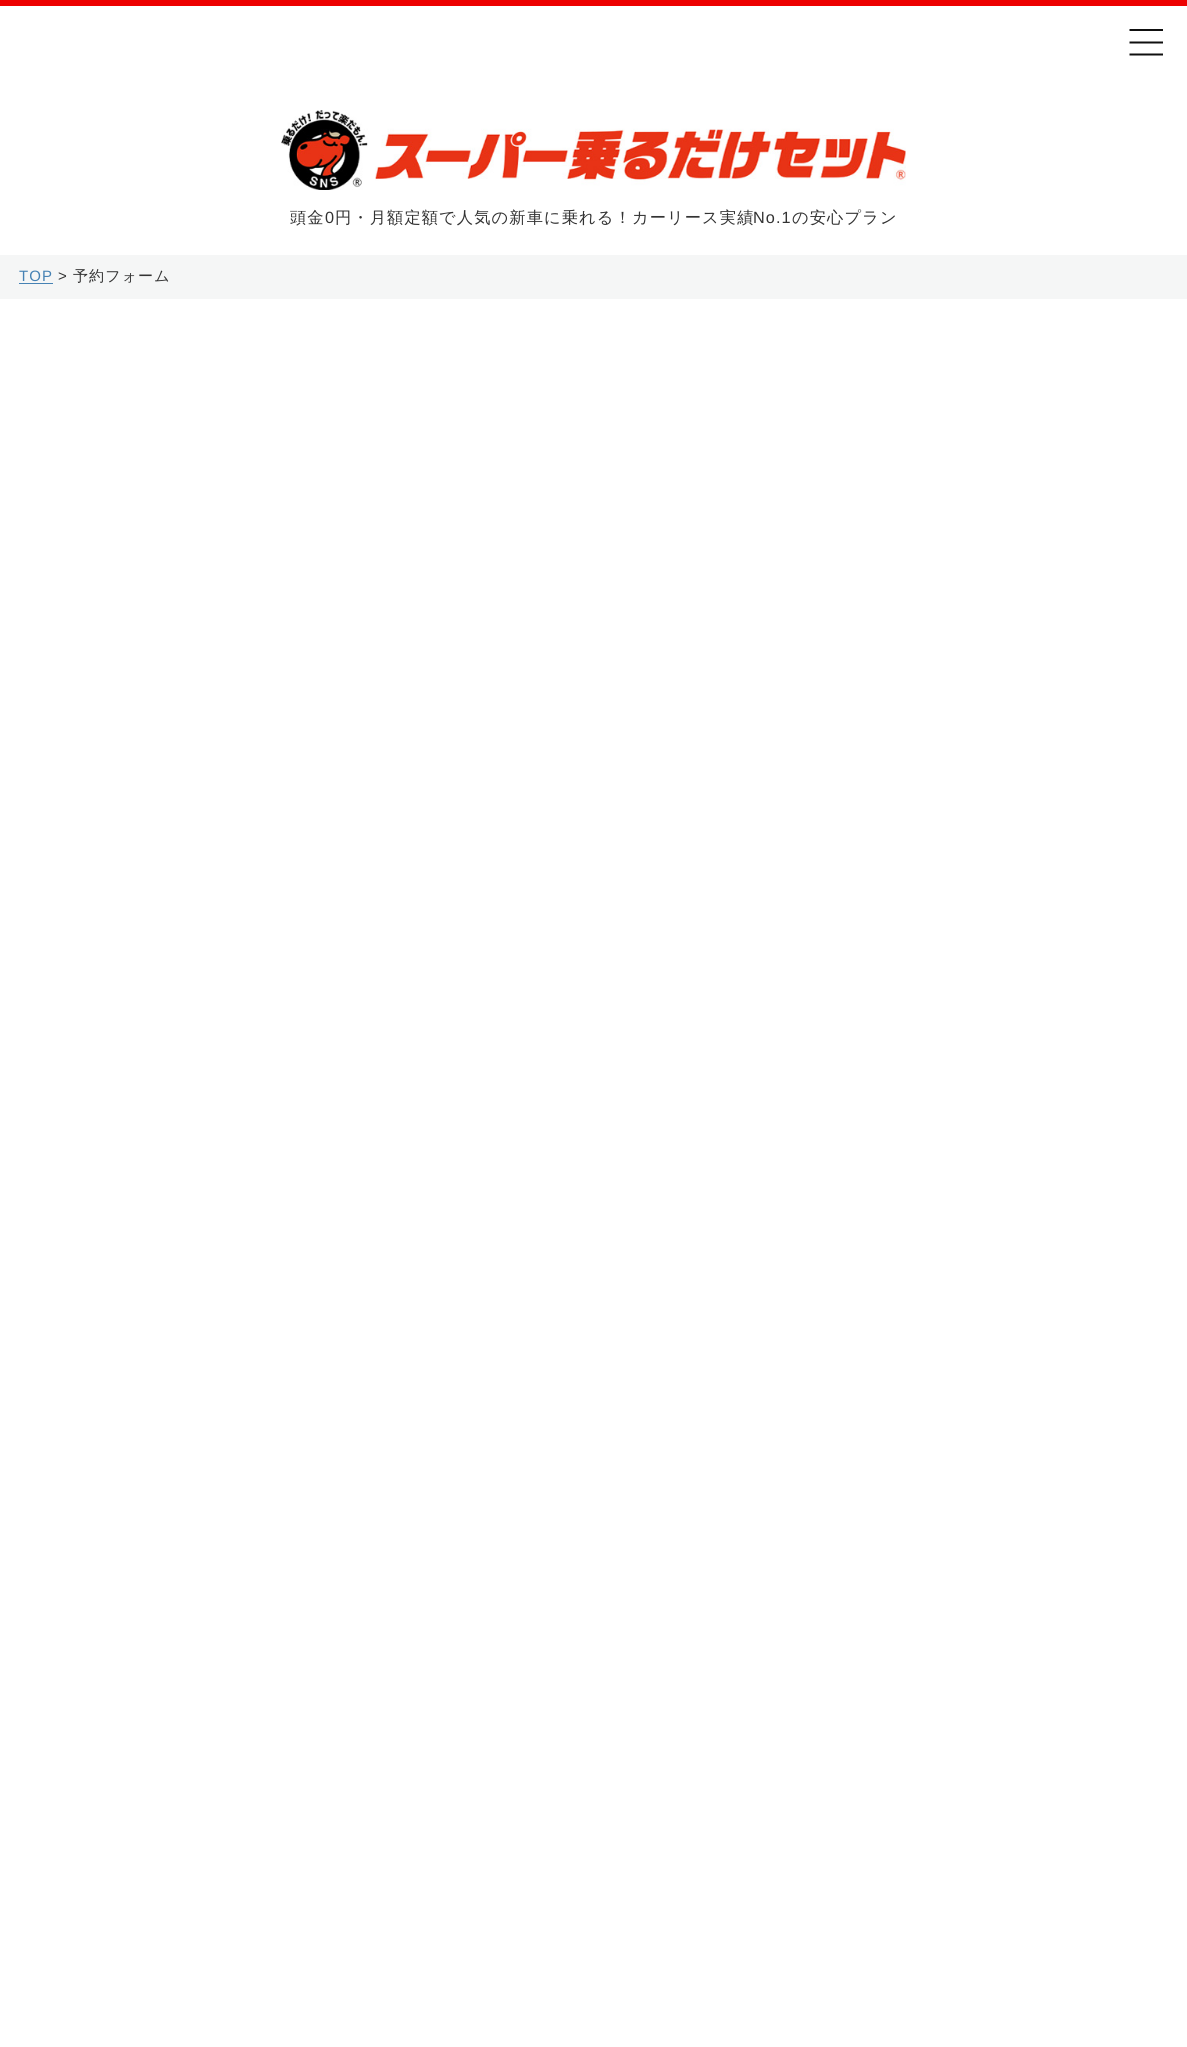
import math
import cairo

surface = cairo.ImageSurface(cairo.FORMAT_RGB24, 1187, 2047)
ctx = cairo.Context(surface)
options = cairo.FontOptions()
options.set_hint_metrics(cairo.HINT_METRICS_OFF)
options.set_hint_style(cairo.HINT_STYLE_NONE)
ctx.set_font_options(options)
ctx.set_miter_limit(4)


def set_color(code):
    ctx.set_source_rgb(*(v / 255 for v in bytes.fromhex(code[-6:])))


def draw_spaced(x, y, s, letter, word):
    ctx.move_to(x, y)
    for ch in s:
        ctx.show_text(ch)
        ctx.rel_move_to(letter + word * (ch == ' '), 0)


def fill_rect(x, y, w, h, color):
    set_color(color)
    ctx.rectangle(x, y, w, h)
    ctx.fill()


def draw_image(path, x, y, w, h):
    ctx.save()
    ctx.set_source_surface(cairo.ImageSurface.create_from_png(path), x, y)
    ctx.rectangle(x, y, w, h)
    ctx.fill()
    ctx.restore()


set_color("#ffffff")
ctx.paint()
fill_rect(0, 0, 1187, 6, "#ed0000")
set_color("#0f0f0f")
ctx.new_path()
ctx.move_to(1129.5, 29)
ctx.line_to(1163, 29)
ctx.line_to(1163, 31)
ctx.line_to(1129.5, 31)
ctx.close_path()
ctx.move_to(1129.5, 41.5)
ctx.line_to(1163, 41.5)
ctx.line_to(1163, 43.5)
ctx.line_to(1129.5, 43.5)
ctx.close_path()
ctx.move_to(1129.5, 53.5)
ctx.line_to(1163, 53.5)
ctx.line_to(1163, 55.5)
ctx.line_to(1129.5, 55.5)
ctx.close_path()
ctx.fill()
draw_image("assets/img1.png", 281, 110, 625, 80)
ctx.select_font_face("WenQuanYi Zen Hei Medium")
ctx.set_font_size(16.25)
set_color("#333333")
draw_spaced(290, 223, "頭金", 1.1, 0)
ctx.select_font_face("Liberation Sans")
draw_spaced(325, 223, "0", 1.1, 0)
ctx.select_font_face("WenQuanYi Zen Hei Medium")
draw_spaced(335, 223, "円・月額定額で人気の新車に乗れる！カーリース実績", 1.1, 0)
ctx.select_font_face("Liberation Sans")
draw_spaced(753, 223, "No.1", 1.1, 0)
ctx.select_font_face("WenQuanYi Zen Hei Medium")
draw_spaced(792, 223, "の安心プラン", 1.1, 0)
fill_rect(0, 255, 1187, 44, "#f5f6f6")
ctx.select_font_face("Liberation Sans")
ctx.set_font_size(15)
set_color("#4682b4")
draw_spaced(19, 281, "TOP", 1.1, 0)
fill_rect(19, 283, 34, 1, "#4682b4")
set_color("#333333")
draw_spaced(58, 281, ">", 1.1, 0)
ctx.select_font_face("WenQuanYi Zen Hei Medium")
draw_spaced(73, 281, "予約フォーム", 1.1, 0)
surface.write_to_png("output.png")
